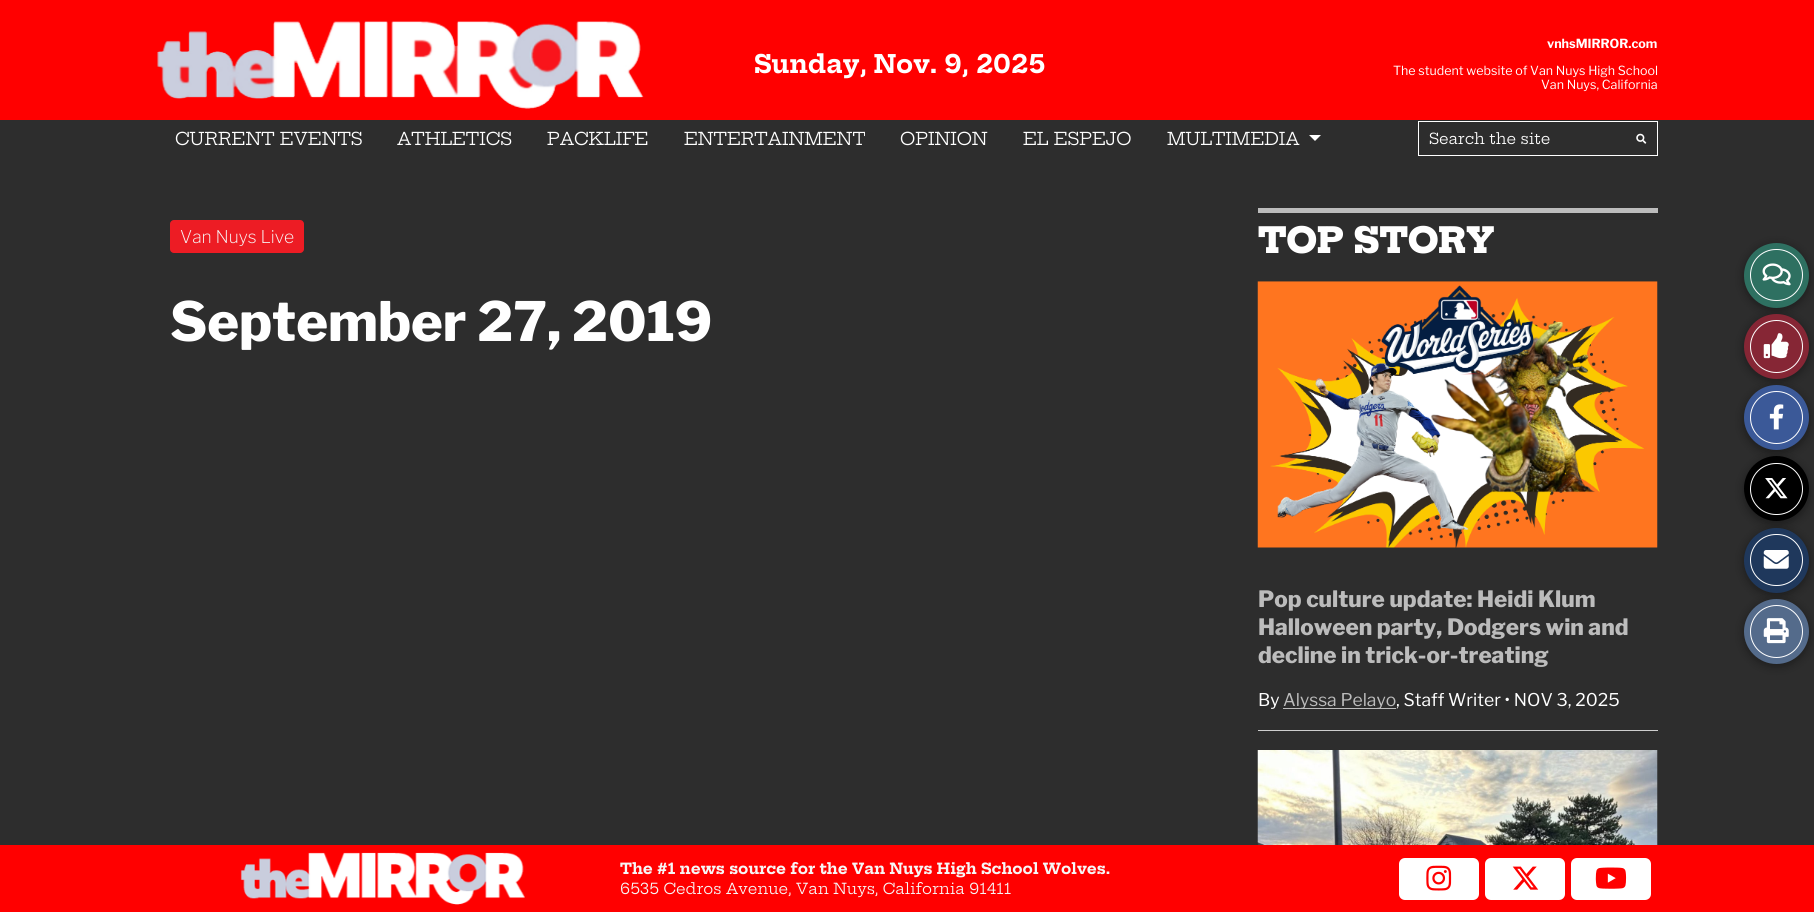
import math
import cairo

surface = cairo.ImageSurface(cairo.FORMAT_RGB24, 1814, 912)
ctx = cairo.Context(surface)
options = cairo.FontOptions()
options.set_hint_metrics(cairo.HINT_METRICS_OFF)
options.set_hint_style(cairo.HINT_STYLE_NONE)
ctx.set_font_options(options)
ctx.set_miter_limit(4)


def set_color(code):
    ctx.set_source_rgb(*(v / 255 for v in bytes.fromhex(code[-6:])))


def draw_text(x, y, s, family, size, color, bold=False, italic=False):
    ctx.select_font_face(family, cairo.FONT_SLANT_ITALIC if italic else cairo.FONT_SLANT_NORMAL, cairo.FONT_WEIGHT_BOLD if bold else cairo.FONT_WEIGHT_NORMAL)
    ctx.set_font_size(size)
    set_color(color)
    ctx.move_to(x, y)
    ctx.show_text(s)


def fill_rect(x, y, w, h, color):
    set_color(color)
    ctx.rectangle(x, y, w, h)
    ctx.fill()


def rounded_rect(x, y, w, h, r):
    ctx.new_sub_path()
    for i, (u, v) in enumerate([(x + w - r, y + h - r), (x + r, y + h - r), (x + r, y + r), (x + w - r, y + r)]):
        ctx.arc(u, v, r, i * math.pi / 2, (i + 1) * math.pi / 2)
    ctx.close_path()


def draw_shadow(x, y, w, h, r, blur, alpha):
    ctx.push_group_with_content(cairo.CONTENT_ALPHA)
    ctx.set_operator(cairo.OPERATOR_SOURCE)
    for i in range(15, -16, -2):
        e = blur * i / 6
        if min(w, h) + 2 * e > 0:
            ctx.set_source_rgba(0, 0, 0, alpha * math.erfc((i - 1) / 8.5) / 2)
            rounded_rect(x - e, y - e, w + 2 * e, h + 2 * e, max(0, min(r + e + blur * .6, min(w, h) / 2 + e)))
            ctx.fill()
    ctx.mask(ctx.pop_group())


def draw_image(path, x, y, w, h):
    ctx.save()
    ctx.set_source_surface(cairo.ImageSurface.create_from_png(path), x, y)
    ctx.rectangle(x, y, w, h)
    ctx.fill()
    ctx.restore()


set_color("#2d2d2d")
ctx.paint()
fill_rect(0, 0, 1814, 120, "#ff0000")
draw_image("assets/img1.png", 157, 21, 487, 88)
draw_text(754, 73, "Sunday, Nov. 9, 2025", "Hepta Slab", 25, "#ffffff", bold=True)
draw_text(1547, 48, "vnhsMIRROR.com", "Libre Franklin", 12.5, "#ffffff", bold=True)
draw_text(1393, 75, "The student website of Van Nuys High School", "Libre Franklin", 12.5, "#ffffff")
draw_text(1541, 89, "Van Nuys, California", "Libre Franklin", 12.5, "#ffffff")
draw_text(175, 145, "CURRENT EVENTS", "Hepta Slab", 17.5, "#ffffff")
draw_text(397, 145, "ATHLETICS", "Hepta Slab", 17.5, "#ffffff")
draw_text(547, 145, "PACKLIFE", "Hepta Slab", 17.5, "#ffffff")
draw_text(684, 145, "ENTERTAINMENT", "Hepta Slab", 17.5, "#ffffff")
draw_text(900, 145, "OPINION", "Hepta Slab", 17.5, "#ffffff")
draw_text(1023, 145, "EL ESPEJO", "Hepta Slab", 17.5, "#ffffff")
draw_text(1167, 145, "MULTIMEDIA", "Hepta Slab", 17.5, "#ffffff")
ctx.new_path()
ctx.move_to(1309, 135)
ctx.line_to(1321, 135)
ctx.line_to(1315, 141)
ctx.close_path()
ctx.fill()
ctx.rectangle(1418.5, 121.5, 239, 34)
ctx.set_line_width(1)
ctx.stroke()
draw_text(1429, 144, "Search the site", "Hepta Slab", 15, "#ffffff")
draw_image("assets/img2.png", 1636, 133, 11, 11)
set_color("#ed1c24")
rounded_rect(170, 220, 134, 33, 4)
ctx.fill()
draw_text(180, 243, "Van Nuys Live", "Libre Franklin ExtraLight", 17.5, "#f7f7f7")
draw_text(170, 341, "September 27, 2019", "Libre Franklin ExtraBold", 54, "#ffffff")
fill_rect(1258, 208, 400, 5, "#bcbcbc")
draw_text(1258, 253, "TOP STORY", "Hepta Slab ExtraBold", 35, "#ffffff")
draw_image("assets/img3.png", 1257, 281, 401, 267)
draw_text(1258, 607, "Pop culture update: Heidi Klum", "Libre Franklin ExtraBold", 22.5, "#bcbcbc")
draw_text(1258, 635, "Halloween party, Dodgers win and", "Libre Franklin ExtraBold", 22.5, "#bcbcbc")
draw_text(1258, 663, "decline in trick-or-treating", "Libre Franklin ExtraBold", 22.5, "#bcbcbc")
draw_text(1258, 706, "By", "Libre Franklin", 17.5, "#ffffff")
fill_rect(1283, 708, 113, 1, "#bcbcbc")
draw_text(1283, 706, "Alyssa Pelayo", "Libre Franklin", 17.5, "#bcbcbc")
draw_text(1396, 706, ", Staff Writer • NOV 3, 2025", "Libre Franklin", 17.5, "#ffffff")
fill_rect(1258, 730, 400, 1, "#cecece")
draw_image("assets/img4.png", 1257, 750, 401, 95)
fill_rect(0, 845, 1814, 67, "#ff0000")
draw_image("assets/img5.png", 240, 852, 285, 53)
draw_text(620, 874, "The #1 news source for the Van Nuys High School Wolves.", "Hepta Slab", 15, "#f7f7f7", bold=True)
draw_text(620, 894, "6535 Cedros Avenue, Van Nuys, California 91411", "Hepta Slab", 15, "#f7f7f7")
set_color("#ffffff")
rounded_rect(1399, 858, 80, 42, 6)
ctx.fill()
draw_image("assets/img6.png", 1426, 865, 26, 26)
rounded_rect(1485, 858, 80, 42, 6)
ctx.fill()
draw_image("assets/img7.png", 1512, 866, 27, 24)
rounded_rect(1571, 858, 80, 42, 6)
ctx.fill()
draw_image("assets/img8.png", 1595, 867, 32, 22)
set_color("#000000")
draw_shadow(1744, 245, 65, 65, 32.5, 5, 0.4)
set_color("#2e7061")
ctx.arc(1776.5, 275.5, 32.5, 0, 2 * math.pi)
ctx.fill()
rounded_rect(1750.5, 249.5, 52, 51, 25.5)
set_color("#ffffff")
ctx.stroke()
draw_image("assets/img9.png", 1762, 263, 29, 23)
set_color("#000000")
draw_shadow(1744, 316, 65, 65, 32.5, 5, 0.4)
set_color("#862635")
ctx.arc(1776.5, 346.5, 32.5, 0, 2 * math.pi)
ctx.fill()
ctx.arc(1776.5, 346.5, 26, 0, 2 * math.pi)
set_color("#ffffff")
ctx.stroke()
draw_image("assets/img10.png", 1763, 333, 26, 26)
set_color("#000000")
draw_shadow(1744, 388, 65, 65, 32.5, 5, 0.4)
set_color("#3b5998")
ctx.arc(1776.5, 417.5, 32.5, 0, 2 * math.pi)
ctx.fill()
ctx.arc(1776.5, 417.5, 26, 0, 2 * math.pi)
set_color("#ffffff")
ctx.stroke()
draw_image("assets/img11.png", 1769, 404, 15, 26)
set_color("#000000")
draw_shadow(1744, 459, 65, 65, 32.5, 5, 0.4)
set_color("#000000")
ctx.arc(1776.5, 488.5, 32.5, 0, 2 * math.pi)
ctx.fill()
rounded_rect(1750.5, 463.5, 52, 51, 25.5)
set_color("#ffffff")
ctx.stroke()
draw_image("assets/img12.png", 1765, 478, 23, 21)
set_color("#000000")
draw_shadow(1744, 530, 65, 65, 32.5, 5, 0.4)
set_color("#1f385c")
ctx.arc(1776.5, 560.5, 32.5, 0, 2 * math.pi)
ctx.fill()
rounded_rect(1750.5, 534.5, 52, 51, 25.5)
set_color("#ffffff")
ctx.stroke()
draw_image("assets/img13.png", 1763, 550, 26, 19)
set_color("#000000")
draw_shadow(1744, 601, 65, 65, 32.5, 5, 0.4)
set_color("#546b8b")
ctx.arc(1776.5, 631.5, 32.5, 0, 2 * math.pi)
ctx.fill()
ctx.arc(1776.5, 631.5, 26, 0, 2 * math.pi)
set_color("#ffffff")
ctx.stroke()
draw_image("assets/img14.png", 1763, 618, 26, 26)
surface.write_to_png("output.png")
